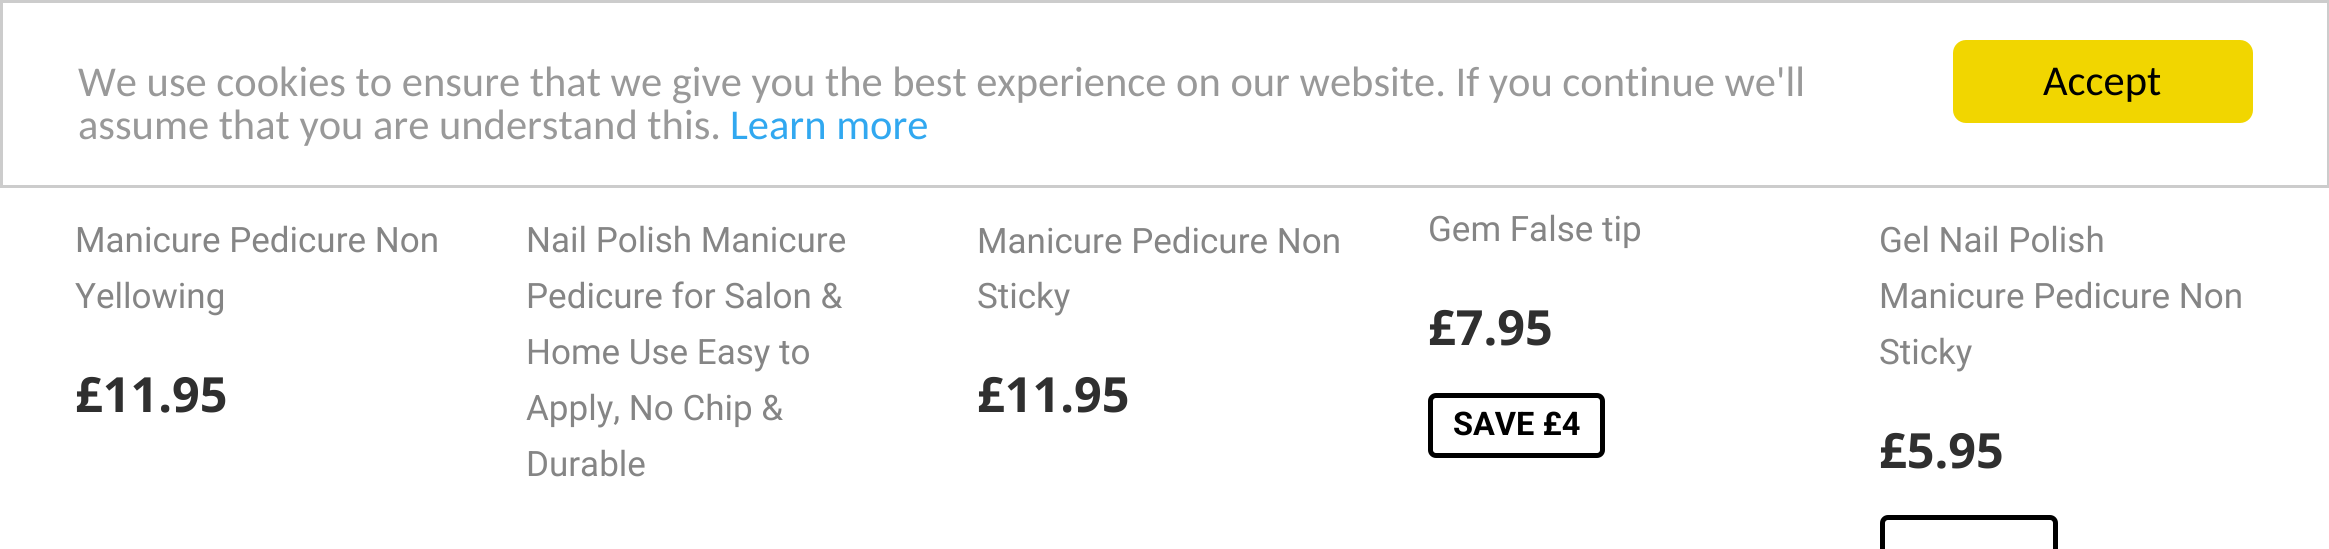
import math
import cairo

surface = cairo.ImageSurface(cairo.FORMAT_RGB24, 2329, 549)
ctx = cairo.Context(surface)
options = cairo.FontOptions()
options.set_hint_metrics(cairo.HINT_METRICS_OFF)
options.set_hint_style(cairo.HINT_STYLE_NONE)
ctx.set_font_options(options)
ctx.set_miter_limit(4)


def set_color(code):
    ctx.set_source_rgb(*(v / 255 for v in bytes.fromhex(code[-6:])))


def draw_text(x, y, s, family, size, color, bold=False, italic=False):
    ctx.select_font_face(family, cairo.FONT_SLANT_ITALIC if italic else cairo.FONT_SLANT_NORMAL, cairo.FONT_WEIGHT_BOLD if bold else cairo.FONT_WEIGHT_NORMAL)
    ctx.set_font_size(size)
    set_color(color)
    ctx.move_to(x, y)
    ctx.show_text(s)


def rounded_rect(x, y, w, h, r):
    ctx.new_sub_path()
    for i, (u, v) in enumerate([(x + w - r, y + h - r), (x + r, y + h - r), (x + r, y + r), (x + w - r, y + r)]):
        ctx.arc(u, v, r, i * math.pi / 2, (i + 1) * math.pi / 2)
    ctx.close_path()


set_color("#ffffff")
ctx.paint()
ctx.rectangle(1.5, 1.5, 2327, 185)
set_color("#cccccc")
ctx.set_line_width(3)
ctx.stroke()
draw_text(78, 96, "We use cookies to ensure that we give you the best experience on our website. If you continue we'll", "Carlito", 42.5, "#999999")
draw_text(78, 139, "assume that you are understand this.", "Carlito", 42.5, "#999999")
draw_text(730, 139, "Learn more", "Carlito", 42.5, "#31a8f0")
set_color("#f1d600")
rounded_rect(1953, 40, 300, 83, 13)
ctx.fill()
draw_text(2043, 95, "Accept", "Carlito", 42.5, "#000000")
draw_text(75, 252, "Manicure Pedicure Non", "Roboto", 35, "#858585")
draw_text(75, 308, "Yellowing", "Roboto", 35, "#858585")
draw_text(75, 412, "£11.95", "Open Sans", 48.5, "#2f2f2f", bold=True)
draw_text(526, 252, "Nail Polish Manicure", "Roboto", 35, "#858585")
draw_text(526, 308, "Pedicure for Salon &", "Roboto", 35, "#858585")
draw_text(526, 364, "Home Use Easy to", "Roboto", 35, "#858585")
draw_text(526, 420, "Apply, No Chip &", "Roboto", 35, "#858585")
draw_text(526, 476, "Durable", "Roboto", 35, "#858585")
draw_text(977, 253, "Manicure Pedicure Non", "Roboto", 35, "#858585")
draw_text(977, 308, "Sticky", "Roboto", 35, "#858585")
draw_text(977, 412, "£11.95", "Open Sans", 48.5, "#2f2f2f", bold=True)
draw_text(1428, 241, "Gem False tip", "Roboto", 35, "#858585")
draw_text(1428, 345, "£7.95", "Open Sans", 48.5, "#2f2f2f", bold=True)
rounded_rect(1430.5, 395.5, 172, 60, 5.5)
set_color("#000000")
ctx.set_line_width(5)
ctx.stroke()
draw_text(1453, 435, "SAVE £4", "Roboto", 32.5, "#000000", bold=True)
draw_text(1879, 252, "Gel Nail Polish", "Roboto", 35, "#858585")
draw_text(1879, 308, "Manicure Pedicure Non", "Roboto", 35, "#858585")
draw_text(1879, 364, "Sticky", "Roboto", 35, "#858585")
draw_text(1879, 468, "£5.95", "Open Sans", 48.5, "#2f2f2f", bold=True)
rounded_rect(1882.5, 517.5, 173, 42, 5.5)
set_color("#000000")
ctx.stroke()
surface.write_to_png("output.png")
